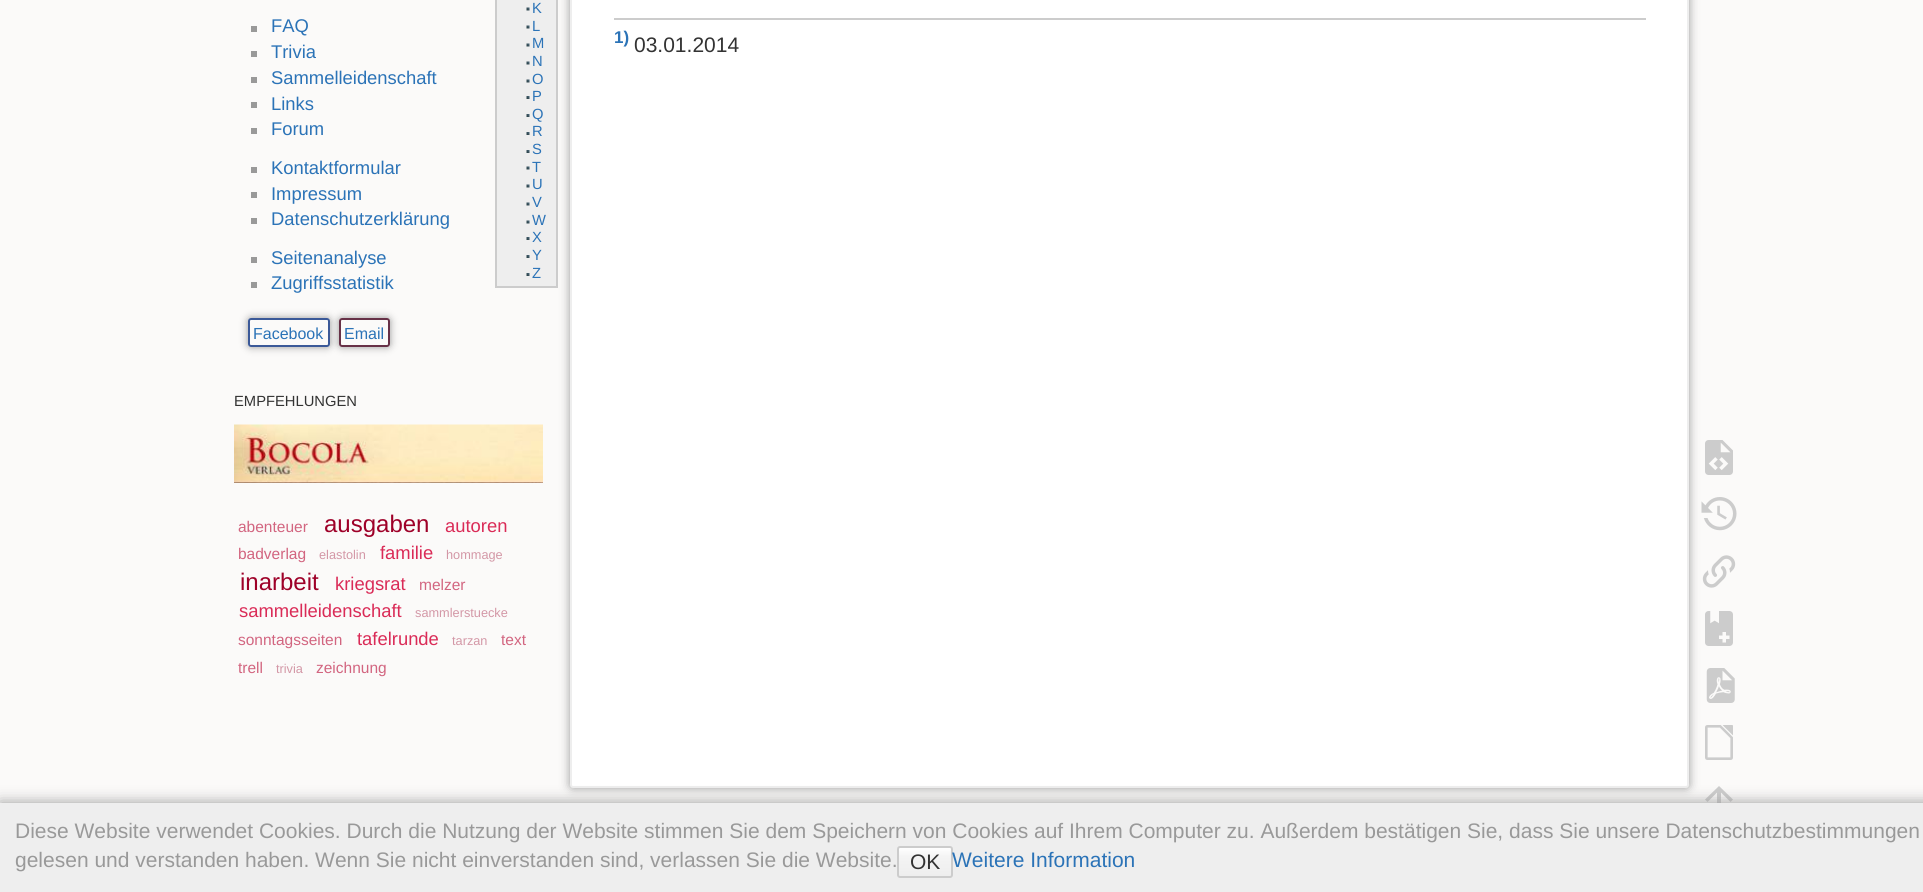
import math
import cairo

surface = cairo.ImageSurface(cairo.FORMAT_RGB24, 1923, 892)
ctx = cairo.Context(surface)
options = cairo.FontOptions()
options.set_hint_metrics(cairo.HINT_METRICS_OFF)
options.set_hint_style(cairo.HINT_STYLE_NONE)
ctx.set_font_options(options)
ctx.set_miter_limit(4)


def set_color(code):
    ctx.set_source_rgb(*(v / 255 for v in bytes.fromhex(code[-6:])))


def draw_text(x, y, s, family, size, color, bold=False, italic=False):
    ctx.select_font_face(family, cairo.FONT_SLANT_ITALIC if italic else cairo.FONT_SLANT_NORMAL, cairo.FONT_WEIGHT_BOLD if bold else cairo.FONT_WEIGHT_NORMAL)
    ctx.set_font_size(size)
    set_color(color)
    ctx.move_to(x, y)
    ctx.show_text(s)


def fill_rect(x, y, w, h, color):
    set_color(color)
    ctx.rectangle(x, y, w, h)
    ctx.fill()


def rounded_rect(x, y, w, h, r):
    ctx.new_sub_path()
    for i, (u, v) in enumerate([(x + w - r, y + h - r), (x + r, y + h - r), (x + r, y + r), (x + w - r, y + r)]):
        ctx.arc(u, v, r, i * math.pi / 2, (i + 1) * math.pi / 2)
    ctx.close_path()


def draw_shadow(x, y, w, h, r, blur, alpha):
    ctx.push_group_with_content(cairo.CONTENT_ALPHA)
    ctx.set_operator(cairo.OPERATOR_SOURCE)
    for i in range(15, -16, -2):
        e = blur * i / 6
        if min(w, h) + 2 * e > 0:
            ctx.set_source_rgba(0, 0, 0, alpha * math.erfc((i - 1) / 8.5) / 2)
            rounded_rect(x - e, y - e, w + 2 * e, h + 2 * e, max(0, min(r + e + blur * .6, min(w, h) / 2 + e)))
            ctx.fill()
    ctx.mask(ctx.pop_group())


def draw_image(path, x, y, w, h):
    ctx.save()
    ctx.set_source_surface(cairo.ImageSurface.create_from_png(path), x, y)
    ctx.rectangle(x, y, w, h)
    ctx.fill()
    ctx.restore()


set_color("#fbfaf9")
ctx.paint()
fill_rect(251, 26, 6, 6, "#999999")
draw_text(271, 32, "FAQ", "Liberation Sans", 18.4, "#2b73b7")
fill_rect(251, 51, 6, 6, "#999999")
draw_text(271, 58, "Trivia", "Liberation Sans", 18.4, "#2b73b7")
fill_rect(251, 77, 6, 6, "#999999")
draw_text(271, 84, "Sammelleidenschaft", "Liberation Sans", 18.4, "#2b73b7")
fill_rect(251, 102, 6, 6, "#999999")
draw_text(271, 110, "Links", "Liberation Sans", 18.4, "#2b73b7")
fill_rect(251, 128, 6, 6, "#999999")
draw_text(271, 135, "Forum", "Liberation Sans", 18.4, "#2b73b7")
set_color("#999999")
draw_shadow(570, -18, 1119, 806, 3, 5, 1)
set_color("#eeeeee")
ctx.rectangle(496, -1, 61, 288)
ctx.fill_preserve()
set_color("#cccccc")
ctx.stroke()
draw_image("assets/img1.png", 526, 7, 4, 4)
draw_text(532, 13, "K", "Liberation Sans", 14.75, "#2b73b7")
draw_image("assets/img1.png", 526, 25, 4, 4)
draw_text(532, 31, "L", "Liberation Sans", 14.75, "#2b73b7")
draw_image("assets/img1.png", 526, 43, 4, 4)
draw_text(532, 48, "M", "Liberation Sans", 14.75, "#2b73b7")
draw_image("assets/img1.png", 526, 61, 4, 4)
draw_text(532, 66, "N", "Liberation Sans", 14.75, "#2b73b7")
draw_image("assets/img1.png", 526, 79, 4, 4)
draw_text(532, 84, "O", "Liberation Sans", 14.75, "#2b73b7")
draw_image("assets/img2.png", 526, 96, 4, 3)
draw_text(532, 101, "P", "Liberation Sans", 14.75, "#2b73b7")
draw_image("assets/img2.png", 526, 114, 4, 3)
draw_text(532, 119, "Q", "Liberation Sans", 14.75, "#2b73b7")
draw_image("assets/img2.png", 526, 132, 4, 3)
draw_text(532, 136, "R", "Liberation Sans", 14.75, "#2b73b7")
draw_image("assets/img2.png", 526, 150, 4, 3)
draw_text(532, 154, "S", "Liberation Sans", 14.75, "#2b73b7")
draw_image("assets/img1.png", 526, 166, 4, 4)
draw_text(532, 172, "T", "Liberation Sans", 14.75, "#2b73b7")
draw_image("assets/img1.png", 526, 184, 4, 4)
draw_text(532, 189, "U", "Liberation Sans", 14.75, "#2b73b7")
draw_image("assets/img1.png", 526, 202, 4, 4)
draw_text(532, 207, "V", "Liberation Sans", 14.75, "#2b73b7")
draw_image("assets/img1.png", 526, 220, 4, 4)
draw_text(532, 225, "W", "Liberation Sans", 14.75, "#2b73b7")
draw_image("assets/img2.png", 526, 237, 4, 3)
draw_text(532, 242, "X", "Liberation Sans", 14.75, "#2b73b7")
draw_image("assets/img2.png", 526, 255, 4, 3)
draw_text(532, 260, "Y", "Liberation Sans", 14.75, "#2b73b7")
draw_image("assets/img2.png", 526, 273, 4, 3)
draw_text(532, 278, "Z", "Liberation Sans", 14.75, "#2b73b7")
fill_rect(251, 167, 6, 6, "#999999")
draw_text(271, 174, "Kontaktformular", "Liberation Sans", 18.4, "#2b73b7")
fill_rect(251, 192, 6, 6, "#999999")
draw_text(271, 200, "Impressum", "Liberation Sans", 18.4, "#2b73b7")
fill_rect(251, 218, 6, 6, "#999999")
draw_text(271, 225, "Datenschutzerklärung", "Liberation Sans", 18.4, "#2b73b7")
fill_rect(251, 257, 6, 6, "#999999")
draw_text(271, 264, "Seitenanalyse", "Liberation Sans", 18.4, "#2b73b7")
fill_rect(251, 282, 6, 6, "#999999")
draw_text(271, 289, "Zugriffsstatistik", "Liberation Sans", 18.4, "#2b73b7")
ctx.save()
ctx.set_fill_rule(cairo.FILL_RULE_EVEN_ODD)
ctx.new_path()
ctx.move_to(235, 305)
ctx.line_to(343, 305)
ctx.line_to(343, 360)
ctx.line_to(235, 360)
ctx.close_path()
ctx.move_to(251, 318)
ctx.line_to(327, 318)
ctx.curve_to(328.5, 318, 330, 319.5, 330, 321)
ctx.line_to(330, 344)
ctx.curve_to(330, 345.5, 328.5, 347, 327, 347)
ctx.line_to(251, 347)
ctx.curve_to(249.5, 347, 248, 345.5, 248, 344)
ctx.line_to(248, 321)
ctx.curve_to(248, 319.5, 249.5, 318, 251, 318)
ctx.close_path()
ctx.clip()
set_color("#999999")
draw_shadow(248, 318, 82, 29, 3, 4, 1)
ctx.restore()
rounded_rect(249, 319, 80, 27, 2)
set_color("#3b5998")
ctx.stroke()
draw_text(253, 339, "Facebook", "Liberation Sans", 16, "#2b73b7")
ctx.save()
ctx.set_fill_rule(cairo.FILL_RULE_EVEN_ODD)
ctx.new_path()
ctx.move_to(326, 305)
ctx.line_to(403, 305)
ctx.line_to(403, 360)
ctx.line_to(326, 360)
ctx.close_path()
ctx.move_to(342, 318)
ctx.line_to(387, 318)
ctx.curve_to(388.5, 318, 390, 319.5, 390, 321)
ctx.line_to(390, 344)
ctx.curve_to(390, 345.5, 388.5, 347, 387, 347)
ctx.line_to(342, 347)
ctx.curve_to(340.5, 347, 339, 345.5, 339, 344)
ctx.line_to(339, 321)
ctx.curve_to(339, 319.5, 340.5, 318, 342, 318)
ctx.close_path()
ctx.clip()
set_color("#999999")
draw_shadow(339, 318, 51, 29, 3, 4, 1)
ctx.restore()
rounded_rect(340, 319, 49, 27, 2)
set_color("#673147")
ctx.stroke()
draw_text(344, 339, "Email", "Liberation Sans", 16, "#2b73b7")
draw_text(234, 406, "EMPFEHLUNGEN", "Liberation Sans", 14.75, "#333333")
draw_image("assets/img3.png", 234, 424, 309, 59)
draw_text(238, 532, "abenteuer", "Liberation Sans", 15.5, "#d26580")
draw_text(324, 532, "ausgaben", "Liberation Sans", 24, "#9e0028")
draw_text(445, 532, "autoren", "Liberation Sans", 18.4, "#da2b57")
draw_text(238, 559, "badverlag", "Liberation Sans", 15.5, "#d26580")
draw_text(319, 559, "elastolin", "Liberation Sans", 12.75, "#d397a6")
draw_text(380, 559, "familie", "Liberation Sans", 18.4, "#da2b57")
draw_text(446, 559, "hommage", "Liberation Sans", 12.75, "#d397a6")
draw_text(240, 590, "inarbeit", "Liberation Sans", 24, "#9e0028")
draw_text(335, 590, "kriegsrat", "Liberation Sans", 18.4, "#da2b57")
draw_text(419, 590, "melzer", "Liberation Sans", 15.5, "#d26580")
draw_text(239, 617, "sammelleidenschaft", "Liberation Sans", 18.4, "#da2b57")
draw_text(415, 617, "sammlerstuecke", "Liberation Sans", 12.75, "#d397a6")
draw_text(238, 645, "sonntagsseiten", "Liberation Sans", 15.5, "#d26580")
draw_text(357, 645, "tafelrunde", "Liberation Sans", 18.4, "#da2b57")
draw_text(452, 645, "tarzan", "Liberation Sans", 12.75, "#d397a6")
draw_text(501, 645, "text", "Liberation Sans", 15.5, "#d26580")
draw_text(238, 673, "trell", "Liberation Sans", 15.5, "#d26580")
draw_text(276, 673, "trivia", "Liberation Sans", 12.75, "#d397a6")
draw_text(316, 673, "zeichnung", "Liberation Sans", 15.5, "#d26580")
set_color("#ffffff")
rounded_rect(571, -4, 1117, 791, 2)
ctx.fill_preserve()
set_color("#eeeeee")
ctx.stroke()
fill_rect(614, 18, 1032, 2, "#cccccc")
draw_text(614, 43, "1)", "Liberation Sans", 17, "#2b73b7", bold=True)
draw_text(634, 52, "03.01.2014", "Liberation Sans", 21, "#333333")
set_color("#cccccc")
ctx.new_path()
ctx.move_to(1721, 813.5)
ctx.line_to(1717, 813.5)
ctx.line_to(1717, 792.5)
ctx.line_to(1707.5, 802)
ctx.line_to(1705, 799.5)
ctx.line_to(1719, 786)
ctx.line_to(1733, 799.5)
ctx.line_to(1730.5, 802)
ctx.line_to(1721, 792.5)
ctx.close_path()
ctx.fill()
set_color("#999999")
draw_shadow(0, 803, 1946, 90, 0, 7.5, 1)
fill_rect(0, 803, 1923, 89, "#eeeeee")
draw_text(15, 838, "Diese Website verwendet Cookies. Durch die Nutzung der Website stimmen Sie dem Speichern von Cookies auf Ihrem Computer zu. Außerdem bestätigen Sie, dass Sie unsere Datenschutzbestimmungen", "Liberation Sans", 21, "#999999")
draw_text(15, 867, "gelesen und verstanden haben. Wenn Sie nicht einverstanden sind, verlassen Sie die Website.", "Liberation Sans", 21, "#999999")
ctx.save()
rounded_rect(897, 846, 56, 32, 3)
ctx.clip()
gradient = cairo.LinearGradient(925, 848, 925, 876)
gradient.add_color_stop_rgba(0, 1, 1, 1, 1)
gradient.add_color_stop_rgba(0.3, 0.957, 0.957, 0.957, 1)
gradient.add_color_stop_rgba(0.99, 0.933, 0.933, 0.933, 1)
gradient.add_color_stop_rgba(0.99, 0.8, 0.8, 0.8, 1)
ctx.set_source(gradient)
ctx.rectangle(897, 848, 56, 28)
ctx.fill()
ctx.restore()
rounded_rect(898, 847, 54, 30, 2)
set_color("#cccccc")
ctx.stroke()
draw_text(910, 869, "OK", "Liberation Sans", 21, "#333333")
draw_text(952, 867, "Weitere Information", "Liberation Sans", 21, "#2b73b7")
draw_image("assets/img4.png", 1705, 440, 28, 35)
draw_image("assets/img5.png", 1701, 497, 36, 34)
draw_image("assets/img6.png", 1702, 555, 34, 33)
draw_image("assets/img7.png", 1705, 611, 28, 35)
draw_image("assets/img8.png", 1706, 668, 29, 35)
draw_image("assets/img9.png", 1705, 725, 28, 35)
surface.write_to_png("output.png")
